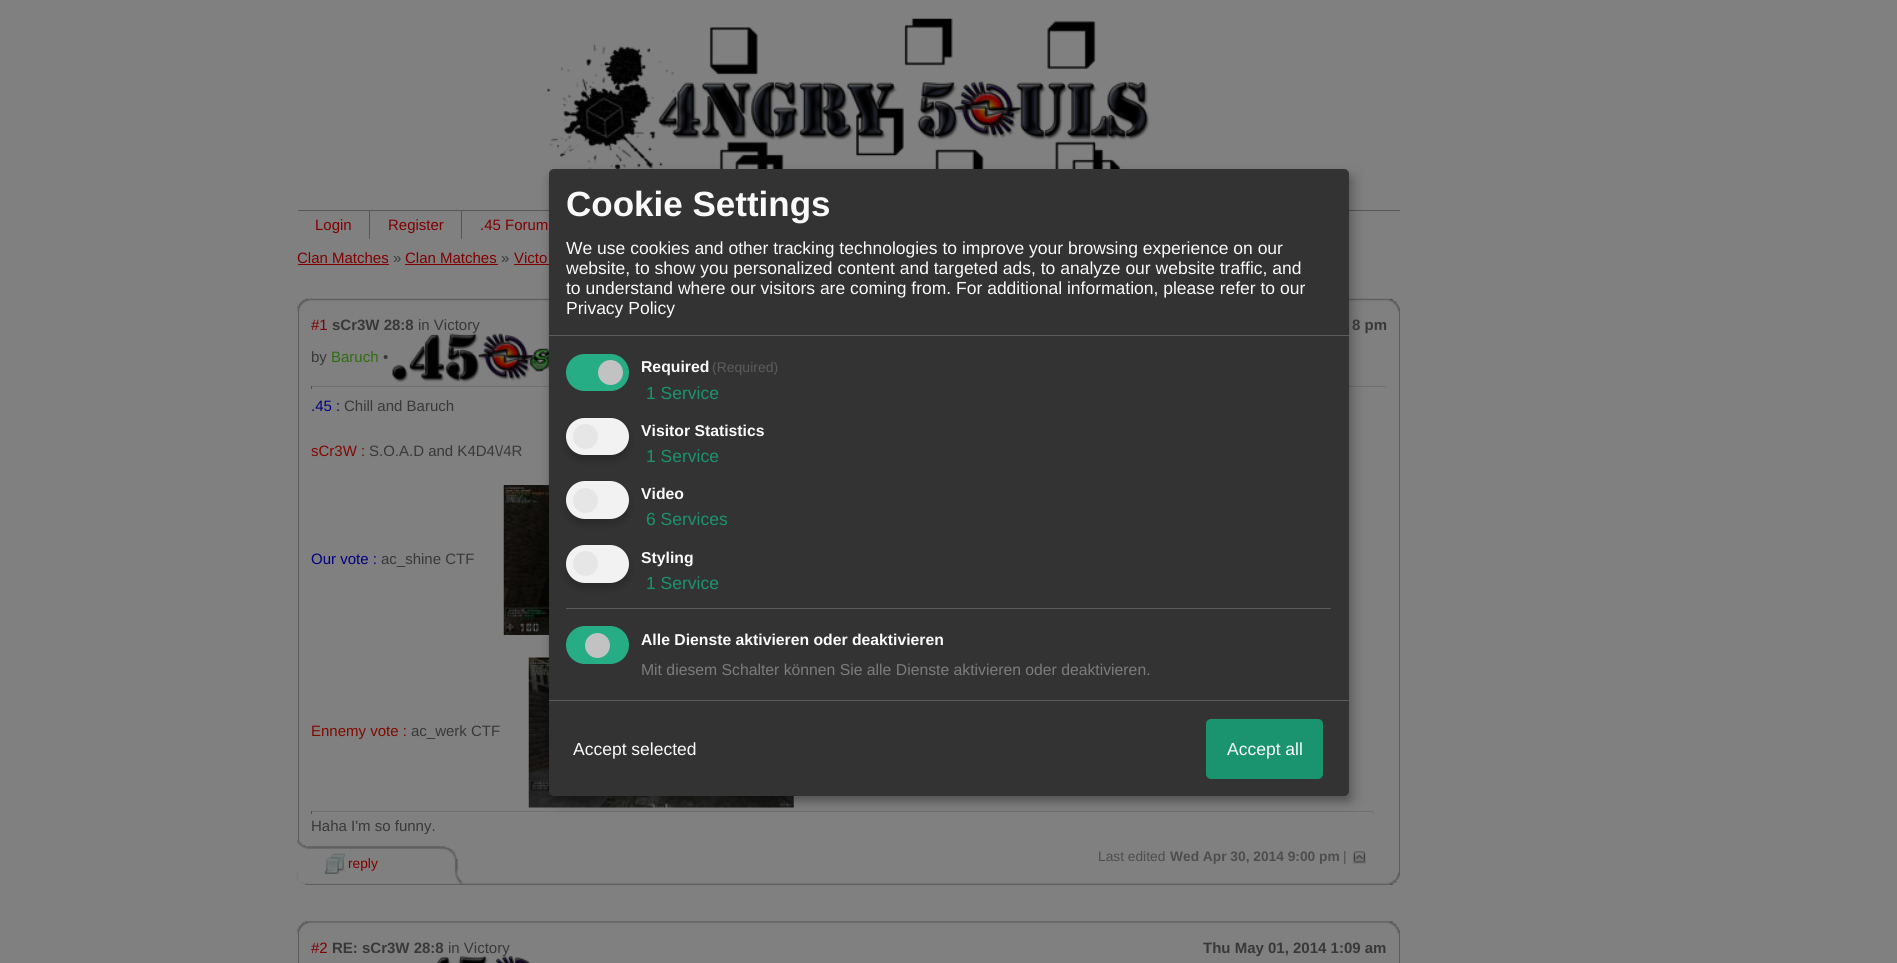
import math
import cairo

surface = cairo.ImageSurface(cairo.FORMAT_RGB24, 1897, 963)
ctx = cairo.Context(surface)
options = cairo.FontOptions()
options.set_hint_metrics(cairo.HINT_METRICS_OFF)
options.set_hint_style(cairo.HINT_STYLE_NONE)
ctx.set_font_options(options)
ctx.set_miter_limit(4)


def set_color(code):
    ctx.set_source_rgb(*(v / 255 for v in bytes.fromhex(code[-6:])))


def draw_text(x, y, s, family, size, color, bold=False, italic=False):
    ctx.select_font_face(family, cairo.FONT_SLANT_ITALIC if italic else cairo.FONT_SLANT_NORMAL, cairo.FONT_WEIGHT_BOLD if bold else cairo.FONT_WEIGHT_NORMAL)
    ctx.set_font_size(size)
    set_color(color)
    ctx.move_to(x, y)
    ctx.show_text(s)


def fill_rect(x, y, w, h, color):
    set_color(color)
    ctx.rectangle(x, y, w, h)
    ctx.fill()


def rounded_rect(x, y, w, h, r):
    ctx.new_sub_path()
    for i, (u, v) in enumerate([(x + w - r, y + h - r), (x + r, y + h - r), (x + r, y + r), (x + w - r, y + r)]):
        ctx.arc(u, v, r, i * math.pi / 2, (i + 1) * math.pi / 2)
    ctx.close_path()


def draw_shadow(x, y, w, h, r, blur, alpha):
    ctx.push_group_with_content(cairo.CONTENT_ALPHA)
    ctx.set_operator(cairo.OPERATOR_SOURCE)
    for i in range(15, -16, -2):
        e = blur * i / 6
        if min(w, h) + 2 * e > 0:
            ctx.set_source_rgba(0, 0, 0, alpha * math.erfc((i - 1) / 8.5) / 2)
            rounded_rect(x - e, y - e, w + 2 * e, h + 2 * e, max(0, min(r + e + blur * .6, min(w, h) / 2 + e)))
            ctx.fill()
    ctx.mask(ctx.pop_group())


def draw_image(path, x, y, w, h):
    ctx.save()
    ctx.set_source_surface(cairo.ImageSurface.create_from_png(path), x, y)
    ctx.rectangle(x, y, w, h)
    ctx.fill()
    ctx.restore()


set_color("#808080")
ctx.paint()
draw_image("assets/img1.png", 547, 18, 603, 151)
fill_rect(298, 210, 1102, 1, "#575757")
fill_rect(514, 264, 35, 1, "#800000")
draw_image("assets/img2.png", 297, 298, 1090, 14)
draw_text(418, 330, "in Victory", "Liberation Sans", 15, "#383838")
draw_image("assets/img4.png", 392, 333, 157, 50)
fill_rect(311, 386, 1075, 1, "#707070")
draw_image("assets/img5.png", 503, 485, 46, 150)
draw_image("assets/img6.png", 528, 657, 266, 151)
fill_rect(311, 811, 1063, 1, "#707070")
fill_rect(1373, 811, 1, 3, "#777777")
set_color("#000000")
draw_shadow(555, 175, 800, 628, 5, 6, 0.19)
draw_shadow(549, 174, 800, 627, 5, 4, 0.2)
set_color("#333333")
rounded_rect(549, 169, 800, 627, 5)
ctx.fill()
fill_rect(549, 335, 800, 1, "#5c5c5c")
draw_text(566, 216, "Cookie Settings", "Liberation Sans", 35, "#fafafa", bold=True)
draw_text(566, 254, "We use cookies and other tracking technologies to improve your browsing experience on our", "Liberation Sans", 17.5, "#fafafa")
draw_text(566, 274, "website, to show you personalized content and targeted ads, to analyze our website traffic, and", "Liberation Sans", 17.5, "#fafafa")
draw_text(566, 294, "to understand where our visitors are coming from. For additional information, please refer to our", "Liberation Sans", 17.5, "#fafafa")
draw_text(566, 314, "Privacy Policy", "Liberation Sans", 17.5, "#fafafa")
set_color("#27ad85")
rounded_rect(566, 354, 63, 37, 18.5)
ctx.fill()
set_color("#c2c2c2")
ctx.arc(610.5, 372.5, 12.5, 0, 2 * math.pi)
ctx.fill()
draw_text(641, 372, "Required", "Liberation Sans", 15.75, "#fafafa", bold=True)
draw_text(712, 372, "(Required)", "Liberation Sans", 14, "#5c5c5c")
draw_text(646, 399, "1 Service", "Liberation Sans", 17.5, "#1a936f")
set_color("#000000")
draw_shadow(566, 423, 63, 37, 18.5, 4, 0.2)
set_color("#f2f2f2")
rounded_rect(566, 418, 63, 37, 18.5)
ctx.fill()
set_color("#e6e6e6")
ctx.arc(585.5, 436.5, 12.5, 0, 2 * math.pi)
ctx.fill()
draw_text(641, 436, "Visitor Statistics", "Liberation Sans", 15.75, "#fafafa", bold=True)
draw_text(646, 462, "1 Service", "Liberation Sans", 17.5, "#1a936f")
set_color("#000000")
draw_shadow(566, 486, 63, 38, 19, 4, 0.2)
set_color("#f2f2f2")
rounded_rect(566, 481, 63, 38, 19)
ctx.fill()
set_color("#e6e6e6")
ctx.arc(585.5, 500.5, 12.5, 0, 2 * math.pi)
ctx.fill()
draw_text(641, 499, "Video", "Liberation Sans", 15.75, "#fafafa", bold=True)
draw_text(646, 525, "6 Services", "Liberation Sans", 17.5, "#1a936f")
set_color("#000000")
draw_shadow(566, 550, 63, 38, 19, 4, 0.2)
set_color("#f2f2f2")
rounded_rect(566, 545, 63, 38, 19)
ctx.fill()
set_color("#e6e6e6")
ctx.arc(585.5, 563.5, 12.5, 0, 2 * math.pi)
ctx.fill()
draw_text(641, 563, "Styling", "Liberation Sans", 15.75, "#fafafa", bold=True)
draw_text(646, 589, "1 Service", "Liberation Sans", 17.5, "#1a936f")
fill_rect(566, 608, 765, 1, "#5c5c5c")
set_color("#27ad85")
rounded_rect(566, 626, 63, 38, 19)
ctx.fill()
set_color("#c2c2c2")
ctx.arc(597.5, 645.5, 12.5, 0, 2 * math.pi)
ctx.fill()
draw_text(641, 645, "Alle Dienste aktivieren oder deaktivieren", "Liberation Sans", 15.75, "#fafafa", bold=True)
draw_text(641, 675, "Mit diesem Schalter können Sie alle Dienste aktivieren oder deaktivieren.", "Liberation Sans", 15.75, "#7c7c7c")
fill_rect(549, 700, 800, 1, "#5c5c5c")
draw_text(573, 755, "Accept selected", "Liberation Sans", 17.5, "#fafafa")
set_color("#1a936f")
rounded_rect(1206, 719, 117, 60, 5)
ctx.fill()
draw_text(1227, 755, "Accept all", "Liberation Sans", 17.5, "#fafafa")
fill_rect(369, 211, 1, 28, "#575757")
draw_text(315, 230, "Login", "Liberation Sans", 15, "#800000")
fill_rect(461, 211, 1, 28, "#575757")
draw_text(388, 230, "Register", "Liberation Sans", 15, "#800000")
draw_text(480, 230, ".45 Forum", "Liberation Sans", 15, "#800000")
draw_text(297, 263, "Clan Matches", "Liberation Sans", 15, "#800000")
fill_rect(298, 264, 91, 1, "#800000")
draw_text(393, 263, "»", "Liberation Sans", 15, "#383838")
draw_text(405, 263, "Clan Matches", "Liberation Sans", 15, "#800000")
fill_rect(405, 264, 93, 1, "#800000")
draw_text(501, 263, "»", "Liberation Sans", 15, "#383838")
draw_text(514, 263, "Victo", "Liberation Sans", 15, "#800000")
fill_rect(1399, 310, 1, 564, "#5c5c5c")
draw_image("assets/img3.png", 1386, 298, 14, 14)
fill_rect(299, 310, 1, 1, "#808080")
fill_rect(298, 310, 1, 532, "#5c5c5c")
draw_text(311, 330, "#1", "Liberation Sans", 15, "#800000")
draw_text(332, 330, "sCr3W 28:8", "Liberation Sans", 15, "#383838", bold=True)
draw_text(1352, 330, "8 pm", "Liberation Sans", 15, "#383838", bold=True)
draw_text(311, 362, "by", "Liberation Sans", 15, "#383838")
draw_text(331, 362, "Baruch", "Liberation Sans", 15, "#2f6d10")
draw_text(383, 362, "•", "Liberation Sans", 15, "#383838")
fill_rect(1385, 386, 1, 3, "#777777")
fill_rect(311, 386, 1, 3, "#505050")
draw_text(311, 411, ".45 :", "Liberation Sans", 15, "#000080")
draw_text(344, 411, "Chill and Baruch", "Liberation Sans", 15, "#383838")
draw_text(311, 456, "sCr3W :", "Liberation Sans", 15, "#800900")
draw_text(369, 456, "S.O.A.D and K4D4\\/4R", "Liberation Sans", 15, "#383838")
draw_text(311, 564, "Our vote :", "Liberation Sans", 15, "#000080")
draw_text(381, 564, "ac_shine CTF", "Liberation Sans", 15, "#383838")
draw_text(311, 736, "Ennemy vote :", "Liberation Sans", 15, "#800900")
draw_text(411, 736, "ac_werk CTF", "Liberation Sans", 15, "#383838")
fill_rect(311, 811, 1, 3, "#505050")
draw_text(311, 831, "Haha I'm so funny.", "Liberation Sans", 15, "#383838")
draw_image("assets/img10.png", 297, 872, 1090, 13)
draw_image("assets/img7.png", 297, 840, 166, 44)
draw_image("assets/img8.png", 325, 853, 20, 21)
draw_text(348, 868, "reply", "Liberation Sans", 13.75, "#800000")
draw_text(1098, 861, "Last edited", "Liberation Sans", 13.75, "#4d4d4d")
draw_text(1170, 861, "Wed Apr 30, 2014 9:00 pm", "Liberation Sans", 13.75, "#4d4d4d", bold=True)
draw_text(1343, 861, "|", "Liberation Sans", 13.75, "#4d4d4d")
draw_image("assets/img9.png", 1352, 851, 15, 13)
draw_image("assets/img11.png", 1386, 872, 14, 13)
draw_image("assets/img12.png", 297, 921, 1090, 13)
fill_rect(1399, 933, 1, 30, "#5c5c5c")
draw_image("assets/img13.png", 1386, 921, 14, 13)
fill_rect(299, 933, 1, 1, "#808080")
fill_rect(298, 933, 1, 30, "#5c5c5c")
draw_text(311, 953, "#2", "Liberation Sans", 15, "#800000")
draw_text(332, 953, "RE: sCr3W 28:8", "Liberation Sans", 15, "#383838", bold=True)
draw_text(448, 953, "in Victory", "Liberation Sans", 15, "#383838")
draw_text(1203, 953, "Thu May 01, 2014 1:09 am", "Liberation Sans", 15, "#383838", bold=True)
draw_image("assets/img14.png", 436, 956, 95, 7)
surface.write_to_png("output.png")
